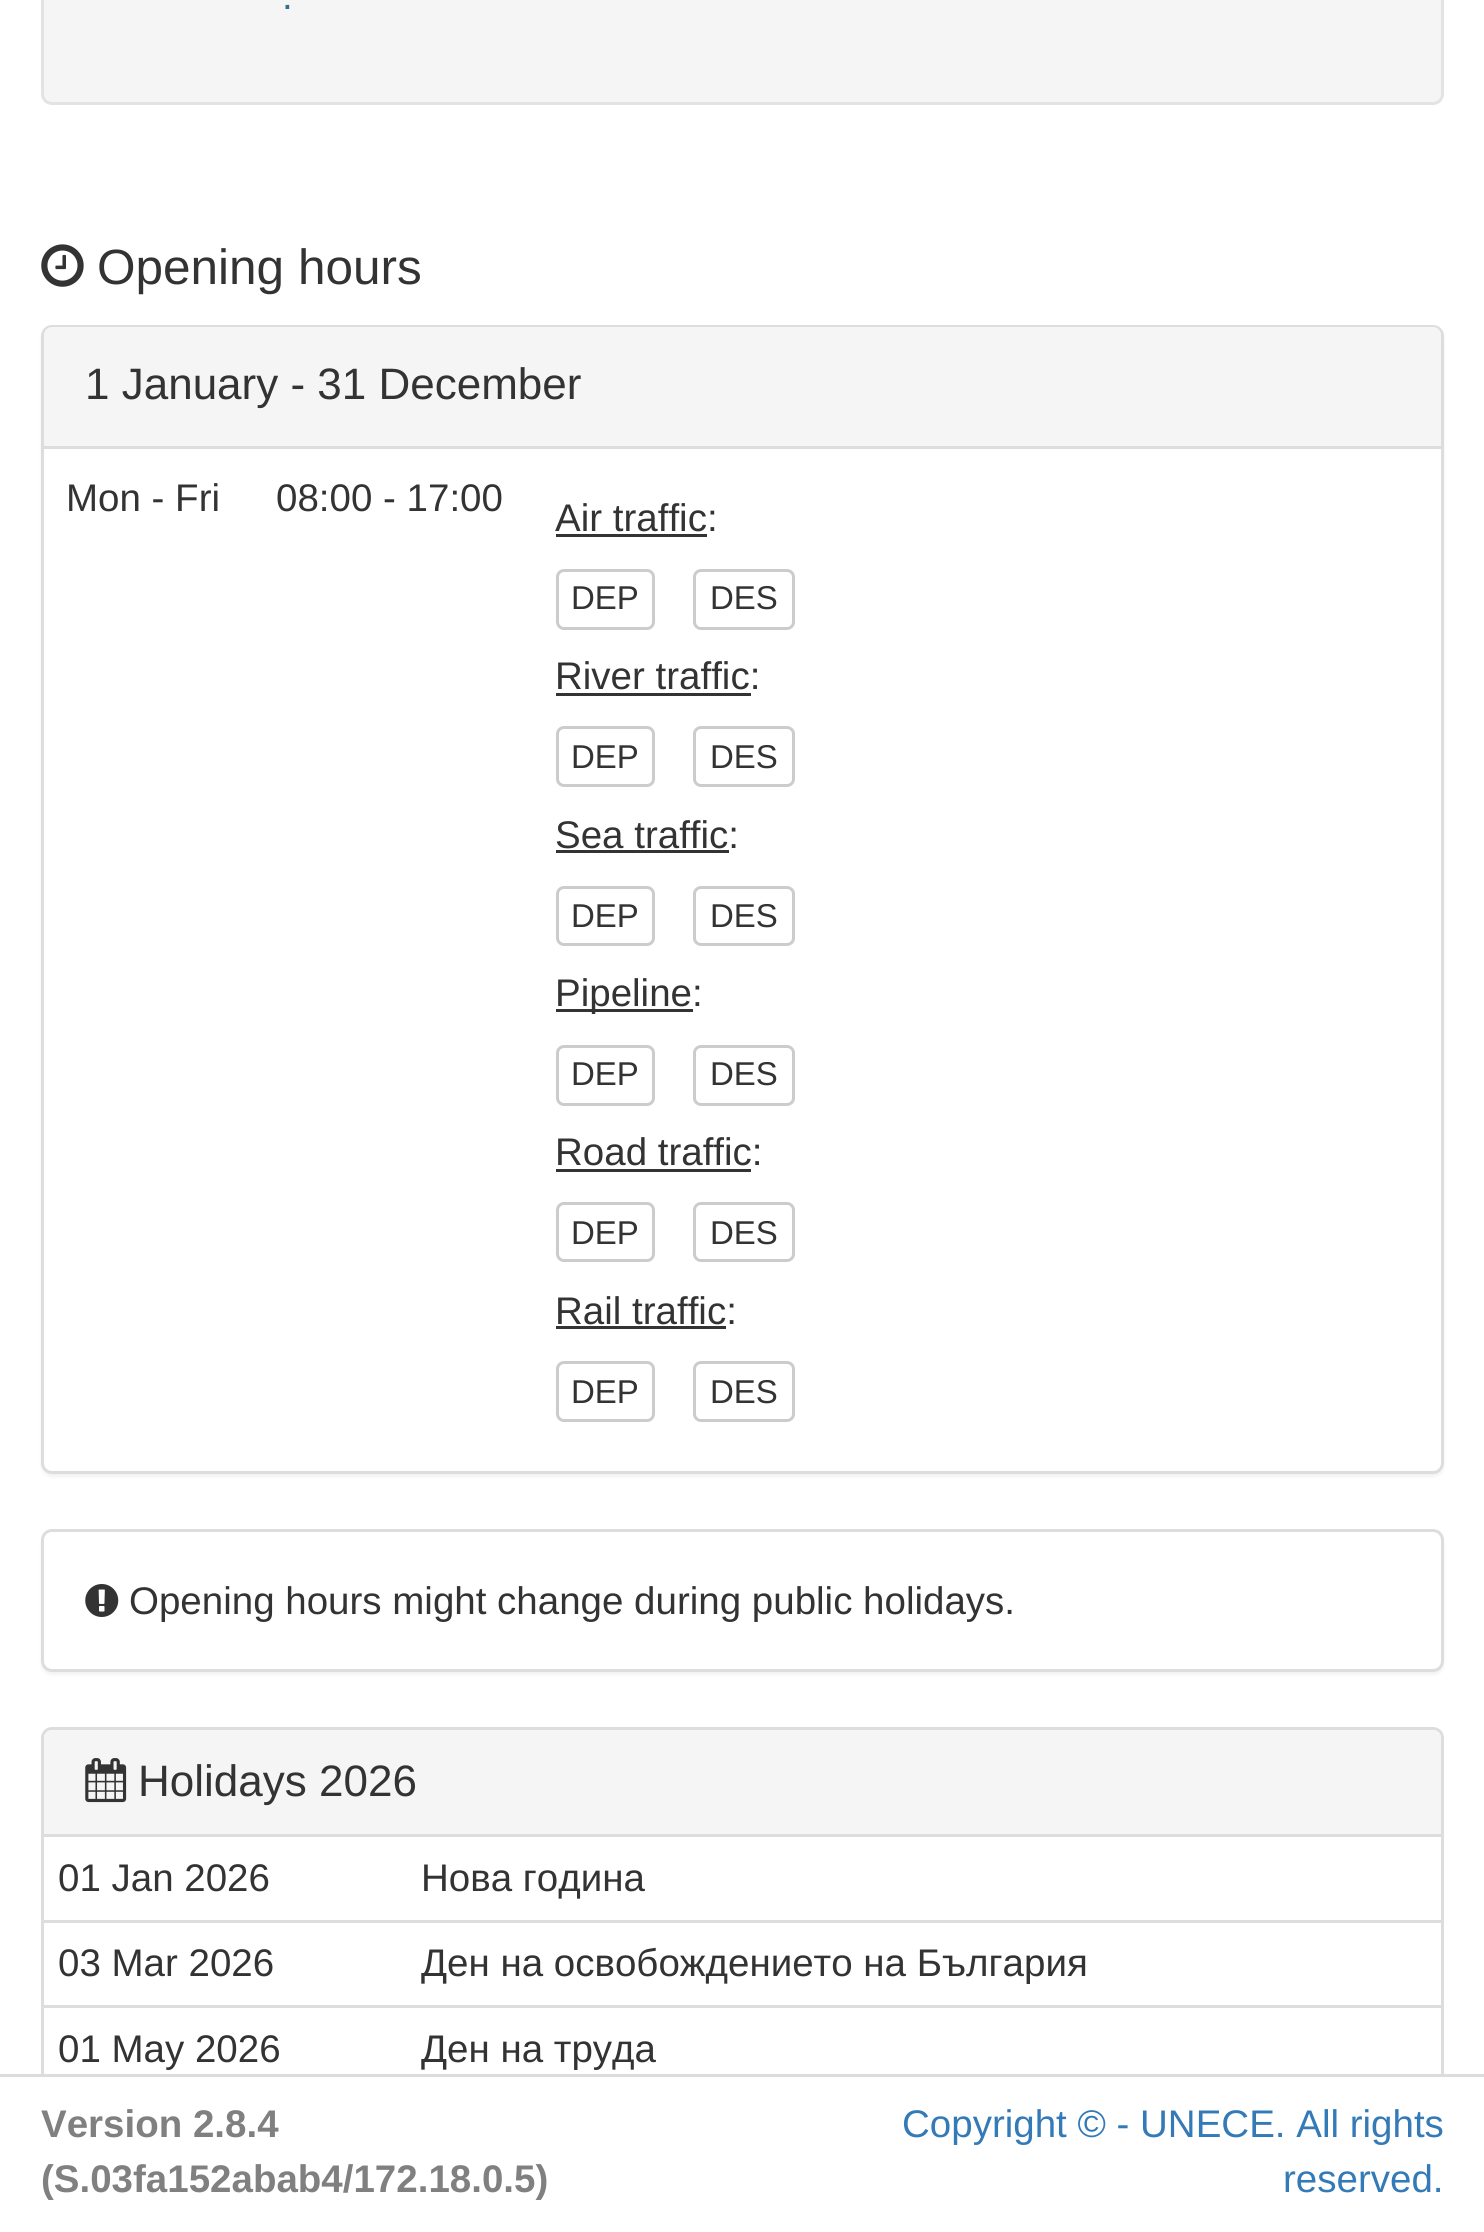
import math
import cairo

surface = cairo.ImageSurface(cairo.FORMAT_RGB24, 1484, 2232)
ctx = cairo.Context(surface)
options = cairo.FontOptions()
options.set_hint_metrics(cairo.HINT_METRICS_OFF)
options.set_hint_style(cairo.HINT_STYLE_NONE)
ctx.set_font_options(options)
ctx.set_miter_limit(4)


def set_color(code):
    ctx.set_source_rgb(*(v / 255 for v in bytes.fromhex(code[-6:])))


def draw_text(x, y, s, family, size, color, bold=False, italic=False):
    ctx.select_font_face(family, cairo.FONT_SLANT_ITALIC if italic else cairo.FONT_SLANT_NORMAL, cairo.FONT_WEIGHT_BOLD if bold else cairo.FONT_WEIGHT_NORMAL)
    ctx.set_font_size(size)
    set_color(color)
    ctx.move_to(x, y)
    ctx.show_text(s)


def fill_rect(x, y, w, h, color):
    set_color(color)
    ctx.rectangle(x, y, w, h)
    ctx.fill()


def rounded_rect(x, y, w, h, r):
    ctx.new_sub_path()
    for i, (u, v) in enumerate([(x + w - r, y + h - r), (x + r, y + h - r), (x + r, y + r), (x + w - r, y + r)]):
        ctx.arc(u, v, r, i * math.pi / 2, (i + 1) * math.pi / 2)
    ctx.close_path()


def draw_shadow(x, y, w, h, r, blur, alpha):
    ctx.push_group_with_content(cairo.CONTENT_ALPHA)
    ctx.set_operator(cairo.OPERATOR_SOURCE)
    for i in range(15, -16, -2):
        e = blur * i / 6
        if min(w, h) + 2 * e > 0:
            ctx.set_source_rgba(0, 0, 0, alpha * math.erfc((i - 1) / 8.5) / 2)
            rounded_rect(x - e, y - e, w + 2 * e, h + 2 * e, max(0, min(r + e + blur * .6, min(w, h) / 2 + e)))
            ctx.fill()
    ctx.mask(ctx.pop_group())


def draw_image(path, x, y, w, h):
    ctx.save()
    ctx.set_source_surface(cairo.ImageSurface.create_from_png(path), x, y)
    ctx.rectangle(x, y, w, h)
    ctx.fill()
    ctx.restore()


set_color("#ffffff")
ctx.paint()
set_color("#f5f5f5")
rounded_rect(42.5, -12.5, 1400, 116, 9.5)
ctx.fill_preserve()
set_color("#e3e3e3")
ctx.set_line_width(3)
ctx.stroke()
draw_text(282, 9, ".", "Liberation Sans", 38.5, "#31708f")
draw_image("assets/img1.png", 41, 244, 43, 43)
draw_text(97, 284, "Opening hours", "Liberation Sans", 49.5, "#333333")
set_color("#000000")
draw_shadow(41, 327, 1403, 1150, 11, 1.5, 0.05)
set_color("#ffffff")
rounded_rect(42.5, 326.5, 1400, 1146, 9.5)
ctx.fill_preserve()
set_color("#dddddd")
ctx.stroke()
set_color("#f5f5f5")
ctx.new_path()
ctx.move_to(52, 327)
ctx.line_to(1433, 327)
ctx.curve_to(1437.5, 327, 1441, 330.5, 1441, 335)
ctx.line_to(1441, 448)
ctx.line_to(44, 448)
ctx.line_to(44, 335)
ctx.curve_to(44, 330.5, 47.5, 327, 52, 327)
ctx.close_path()
ctx.fill()
fill_rect(44, 446, 1397, 3, "#dddddd")
draw_text(85, 399, "1 January - 31 December", "Liberation Sans", 44, "#333333")
draw_text(66, 511, "Mon - Fri", "Liberation Sans", 38.5, "#333333")
draw_text(276, 511, "08:00 - 17:00", "Liberation Sans", 38.5, "#333333")
draw_text(555, 531, "Air traffic:", "Liberation Sans", 38.5, "#333333")
fill_rect(556, 534, 151, 3, "#333333")
rounded_rect(557.5, 570.5, 96, 58, 6.5)
set_color("#cccccc")
ctx.stroke()
draw_text(571, 609, "DEP", "Liberation Sans", 33, "#333333")
rounded_rect(694.5, 570.5, 99, 58, 6.5)
set_color("#cccccc")
ctx.stroke()
draw_text(710, 609, "DES", "Liberation Sans", 33, "#333333")
draw_text(555, 689, "River traffic:", "Liberation Sans", 38.5, "#333333")
fill_rect(556, 693, 195, 3, "#333333")
rounded_rect(557.5, 727.5, 96, 58, 6.5)
set_color("#cccccc")
ctx.stroke()
draw_text(571, 768, "DEP", "Liberation Sans", 33, "#333333")
rounded_rect(694.5, 727.5, 99, 58, 6.5)
set_color("#cccccc")
ctx.stroke()
draw_text(710, 768, "DES", "Liberation Sans", 33, "#333333")
draw_text(555, 848, "Sea traffic:", "Liberation Sans", 38.5, "#333333")
fill_rect(556, 850, 173, 3, "#333333")
rounded_rect(557.5, 887.5, 96, 57, 6.5)
set_color("#cccccc")
ctx.stroke()
draw_text(571, 927, "DEP", "Liberation Sans", 33, "#333333")
rounded_rect(694.5, 887.5, 99, 57, 6.5)
set_color("#cccccc")
ctx.stroke()
draw_text(710, 927, "DES", "Liberation Sans", 33, "#333333")
fill_rect(556, 1009, 137, 3, "#333333")
draw_text(555, 1006, "Pipeline:", "Liberation Sans", 38.5, "#333333")
rounded_rect(557.5, 1046.5, 96, 58, 6.5)
set_color("#cccccc")
ctx.stroke()
draw_text(571, 1085, "DEP", "Liberation Sans", 33, "#333333")
rounded_rect(694.5, 1046.5, 99, 58, 6.5)
set_color("#cccccc")
ctx.stroke()
draw_text(710, 1085, "DES", "Liberation Sans", 33, "#333333")
draw_text(555, 1165, "Road traffic:", "Liberation Sans", 38.5, "#333333")
fill_rect(556, 1169, 195, 3, "#333333")
rounded_rect(557.5, 1203.5, 96, 57, 6.5)
set_color("#cccccc")
ctx.stroke()
draw_text(571, 1244, "DEP", "Liberation Sans", 33, "#333333")
rounded_rect(694.5, 1203.5, 99, 57, 6.5)
set_color("#cccccc")
ctx.stroke()
draw_text(710, 1244, "DES", "Liberation Sans", 33, "#333333")
draw_text(555, 1324, "Rail traffic:", "Liberation Sans", 38.5, "#333333")
fill_rect(556, 1326, 170, 3, "#333333")
rounded_rect(557.5, 1362.5, 96, 58, 6.5)
set_color("#cccccc")
ctx.stroke()
draw_text(571, 1403, "DEP", "Liberation Sans", 33, "#333333")
rounded_rect(694.5, 1362.5, 99, 58, 6.5)
set_color("#cccccc")
ctx.stroke()
draw_text(710, 1403, "DES", "Liberation Sans", 33, "#333333")
set_color("#000000")
draw_shadow(41, 1532, 1403, 143, 11, 1.5, 0.05)
set_color("#ffffff")
rounded_rect(42.5, 1530.5, 1400, 140, 9.5)
ctx.fill_preserve()
set_color("#dddddd")
ctx.stroke()
draw_image("assets/img2.png", 85, 1584, 34, 33)
draw_text(129, 1614, "Opening hours might change during public holidays.", "Liberation Sans", 38.5, "#333333")
rounded_rect(42.5, 1728.5, 1400, 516, 9.5)
set_color("#dddddd")
ctx.stroke()
set_color("#f5f5f5")
ctx.new_path()
ctx.move_to(52, 1730)
ctx.line_to(1433, 1730)
ctx.curve_to(1437.5, 1730, 1441, 1733.5, 1441, 1738)
ctx.line_to(1441, 1834)
ctx.line_to(44, 1834)
ctx.line_to(44, 1738)
ctx.curve_to(44, 1733.5, 47.5, 1730, 52, 1730)
ctx.close_path()
ctx.fill()
draw_image("assets/img3.png", 85, 1758, 42, 45)
draw_text(138, 1796, "Holidays 2026", "Liberation Sans", 44, "#333333")
draw_text(58, 1891, "01 Jan 2026", "Liberation Sans", 38.5, "#333333")
fill_rect(44, 1834, 1400, 3, "#dddddd")
draw_text(421, 1891, "Нова година", "Liberation Sans", 38.5, "#333333")
draw_text(58, 1976, "03 Mar 2026", "Liberation Sans", 38.5, "#333333")
fill_rect(44, 1920, 1400, 3, "#dddddd")
draw_text(421, 1976, "Ден на освобождението на България", "Liberation Sans", 38.5, "#333333")
draw_text(58, 2062, "01 May 2026", "Liberation Sans", 38.5, "#333333")
fill_rect(44, 2005, 1400, 3, "#dddddd")
draw_text(421, 2062, "Ден на труда", "Liberation Sans", 38.5, "#333333")
fill_rect(41, 2077, 1403, 155, "#ffffff")
fill_rect(0, 2074, 1484, 3, "#dcdcdc")
draw_text(41, 2137, "Version 2.8.4", "Liberation Sans", 38.5, "#808080", bold=True)
draw_text(41, 2192, "(S.03fa152abab4/172.18.0.5)", "Liberation Sans", 38.5, "#808080", bold=True)
draw_text(902, 2137, "Copyright © - UNECE. All rights", "Liberation Sans", 38.5, "#337ab7")
draw_text(1283, 2192, "reserved.", "Liberation Sans", 38.5, "#337ab7")
surface.write_to_png("output.png")
